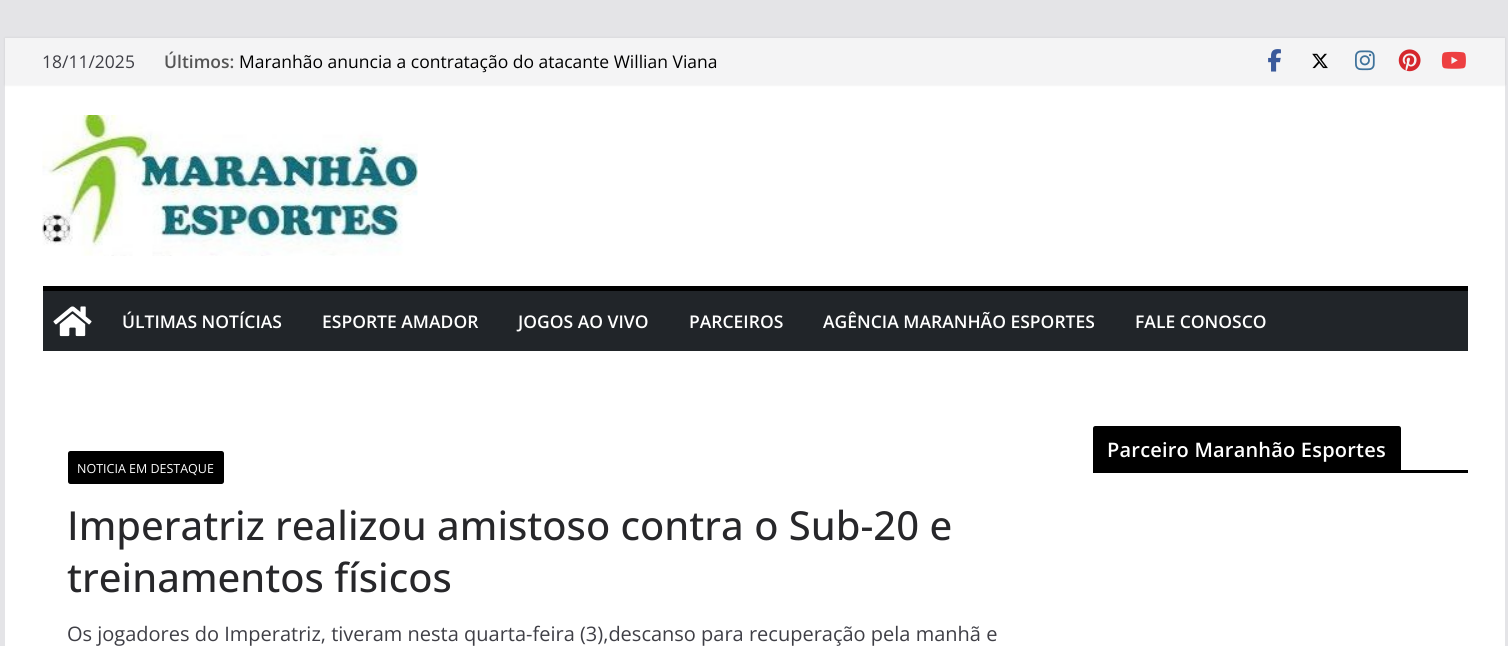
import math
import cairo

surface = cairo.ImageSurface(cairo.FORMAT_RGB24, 1508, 646)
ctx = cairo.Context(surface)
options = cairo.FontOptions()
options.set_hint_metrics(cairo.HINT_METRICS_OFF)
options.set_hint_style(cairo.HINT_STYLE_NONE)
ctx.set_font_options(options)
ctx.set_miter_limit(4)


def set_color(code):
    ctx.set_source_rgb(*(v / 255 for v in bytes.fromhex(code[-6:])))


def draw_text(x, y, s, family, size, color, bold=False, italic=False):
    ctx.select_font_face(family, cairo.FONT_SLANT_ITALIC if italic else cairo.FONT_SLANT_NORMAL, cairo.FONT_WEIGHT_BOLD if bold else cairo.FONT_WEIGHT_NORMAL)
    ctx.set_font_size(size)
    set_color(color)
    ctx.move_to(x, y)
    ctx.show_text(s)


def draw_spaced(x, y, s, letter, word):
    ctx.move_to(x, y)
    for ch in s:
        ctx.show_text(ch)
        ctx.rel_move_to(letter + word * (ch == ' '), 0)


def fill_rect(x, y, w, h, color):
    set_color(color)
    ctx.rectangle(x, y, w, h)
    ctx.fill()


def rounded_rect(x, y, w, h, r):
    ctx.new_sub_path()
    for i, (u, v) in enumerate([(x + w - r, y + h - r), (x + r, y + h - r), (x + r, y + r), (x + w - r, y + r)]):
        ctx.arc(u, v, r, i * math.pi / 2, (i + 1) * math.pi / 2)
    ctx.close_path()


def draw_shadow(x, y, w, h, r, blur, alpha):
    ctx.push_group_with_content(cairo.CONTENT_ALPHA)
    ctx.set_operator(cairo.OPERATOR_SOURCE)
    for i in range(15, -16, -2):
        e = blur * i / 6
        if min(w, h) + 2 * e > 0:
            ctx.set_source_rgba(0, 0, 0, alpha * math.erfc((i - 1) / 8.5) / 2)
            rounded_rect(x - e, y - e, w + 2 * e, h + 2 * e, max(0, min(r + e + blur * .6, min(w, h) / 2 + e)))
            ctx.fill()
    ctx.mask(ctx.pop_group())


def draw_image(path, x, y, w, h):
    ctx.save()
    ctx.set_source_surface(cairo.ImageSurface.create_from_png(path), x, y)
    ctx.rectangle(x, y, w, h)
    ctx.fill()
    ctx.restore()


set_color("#e4e4e7")
ctx.paint()
fill_rect(5, 85, 1500, 561, "#ffffff")
set_color("#000000")
draw_shadow(5, 38, 1500, 47, 0, 1, 0.1)
fill_rect(5, 38, 1500, 47, "#f4f4f5")
draw_text(42, 68, "18/11/2025", "Open Sans", 17.5, "#3f3f46")
draw_text(164, 68, "Últimos:", "Open Sans SemiBold", 17.5, "#555555")
draw_text(239, 68, "Maranhão anuncia a contratação do atacante Willian Viana", "Open Sans", 17.5, "#000000")
draw_image("assets/img1.png", 1268, 49, 13, 23)
draw_image("assets/img2.png", 1312, 53, 16, 16)
draw_image("assets/img3.png", 1355, 50, 20, 21)
draw_image("assets/img4.png", 1398, 49, 23, 23)
draw_image("assets/img5.png", 1441, 51, 25, 18)
draw_image("assets/img6.png", 42, 115, 376, 141)
fill_rect(43, 291, 1425, 60, "#212529")
fill_rect(43, 286, 1425, 5, "#000000")
draw_image("assets/img7.png", 53, 306, 39, 31)
draw_text(122, 328, "ÚLTIMAS NOTÍCIAS", "Open Sans SemiBold", 17.5, "#ffffff")
draw_text(322, 328, "ESPORTE AMADOR", "Open Sans SemiBold", 17.5, "#ffffff")
draw_text(518, 328, "JOGOS AO VIVO", "Open Sans SemiBold", 17.5, "#ffffff")
draw_text(689, 328, "PARCEIROS", "Open Sans SemiBold", 17.5, "#ffffff")
draw_text(823, 328, "AGÊNCIA MARANHÃO ESPORTES", "Open Sans SemiBold", 17.5, "#ffffff")
draw_text(1135, 328, "FALE CONOSCO", "Open Sans SemiBold", 17.5, "#ffffff")
fill_rect(1093, 470, 375, 3, "#000000")
ctx.new_path()
ctx.move_to(1095.5, 426)
ctx.line_to(1398.5, 426)
ctx.curve_to(1400, 426, 1401, 427, 1401, 428.5)
ctx.line_to(1401, 470)
ctx.line_to(1093, 470)
ctx.line_to(1093, 428.5)
ctx.curve_to(1093, 427, 1094, 426, 1095.5, 426)
ctx.close_path()
ctx.fill()
ctx.set_font_size(20)
set_color("#ffffff")
draw_spaced(1107, 457, "Parceiro Maranhão Esportes", 0.2, 0)
set_color("#000000")
rounded_rect(68, 451, 156, 33, 2.5)
ctx.fill()
draw_text(77, 473, "NOTICIA EM DESTAQUE", "Open Sans", 12.5, "#ffffff")
draw_text(67, 540, "Imperatriz realizou amistoso contra o Sub-20 e", "Open Sans Medium", 40, "#27272a")
draw_text(67, 592, "treinamentos físicos", "Open Sans Medium", 40, "#27272a")
draw_text(67, 641, "Os jogadores do Imperatriz, tiveram nesta quarta-feira (3),descanso para recuperação pela manhã e", "Open Sans", 20, "#3f3f46")
surface.write_to_png("output.png")
